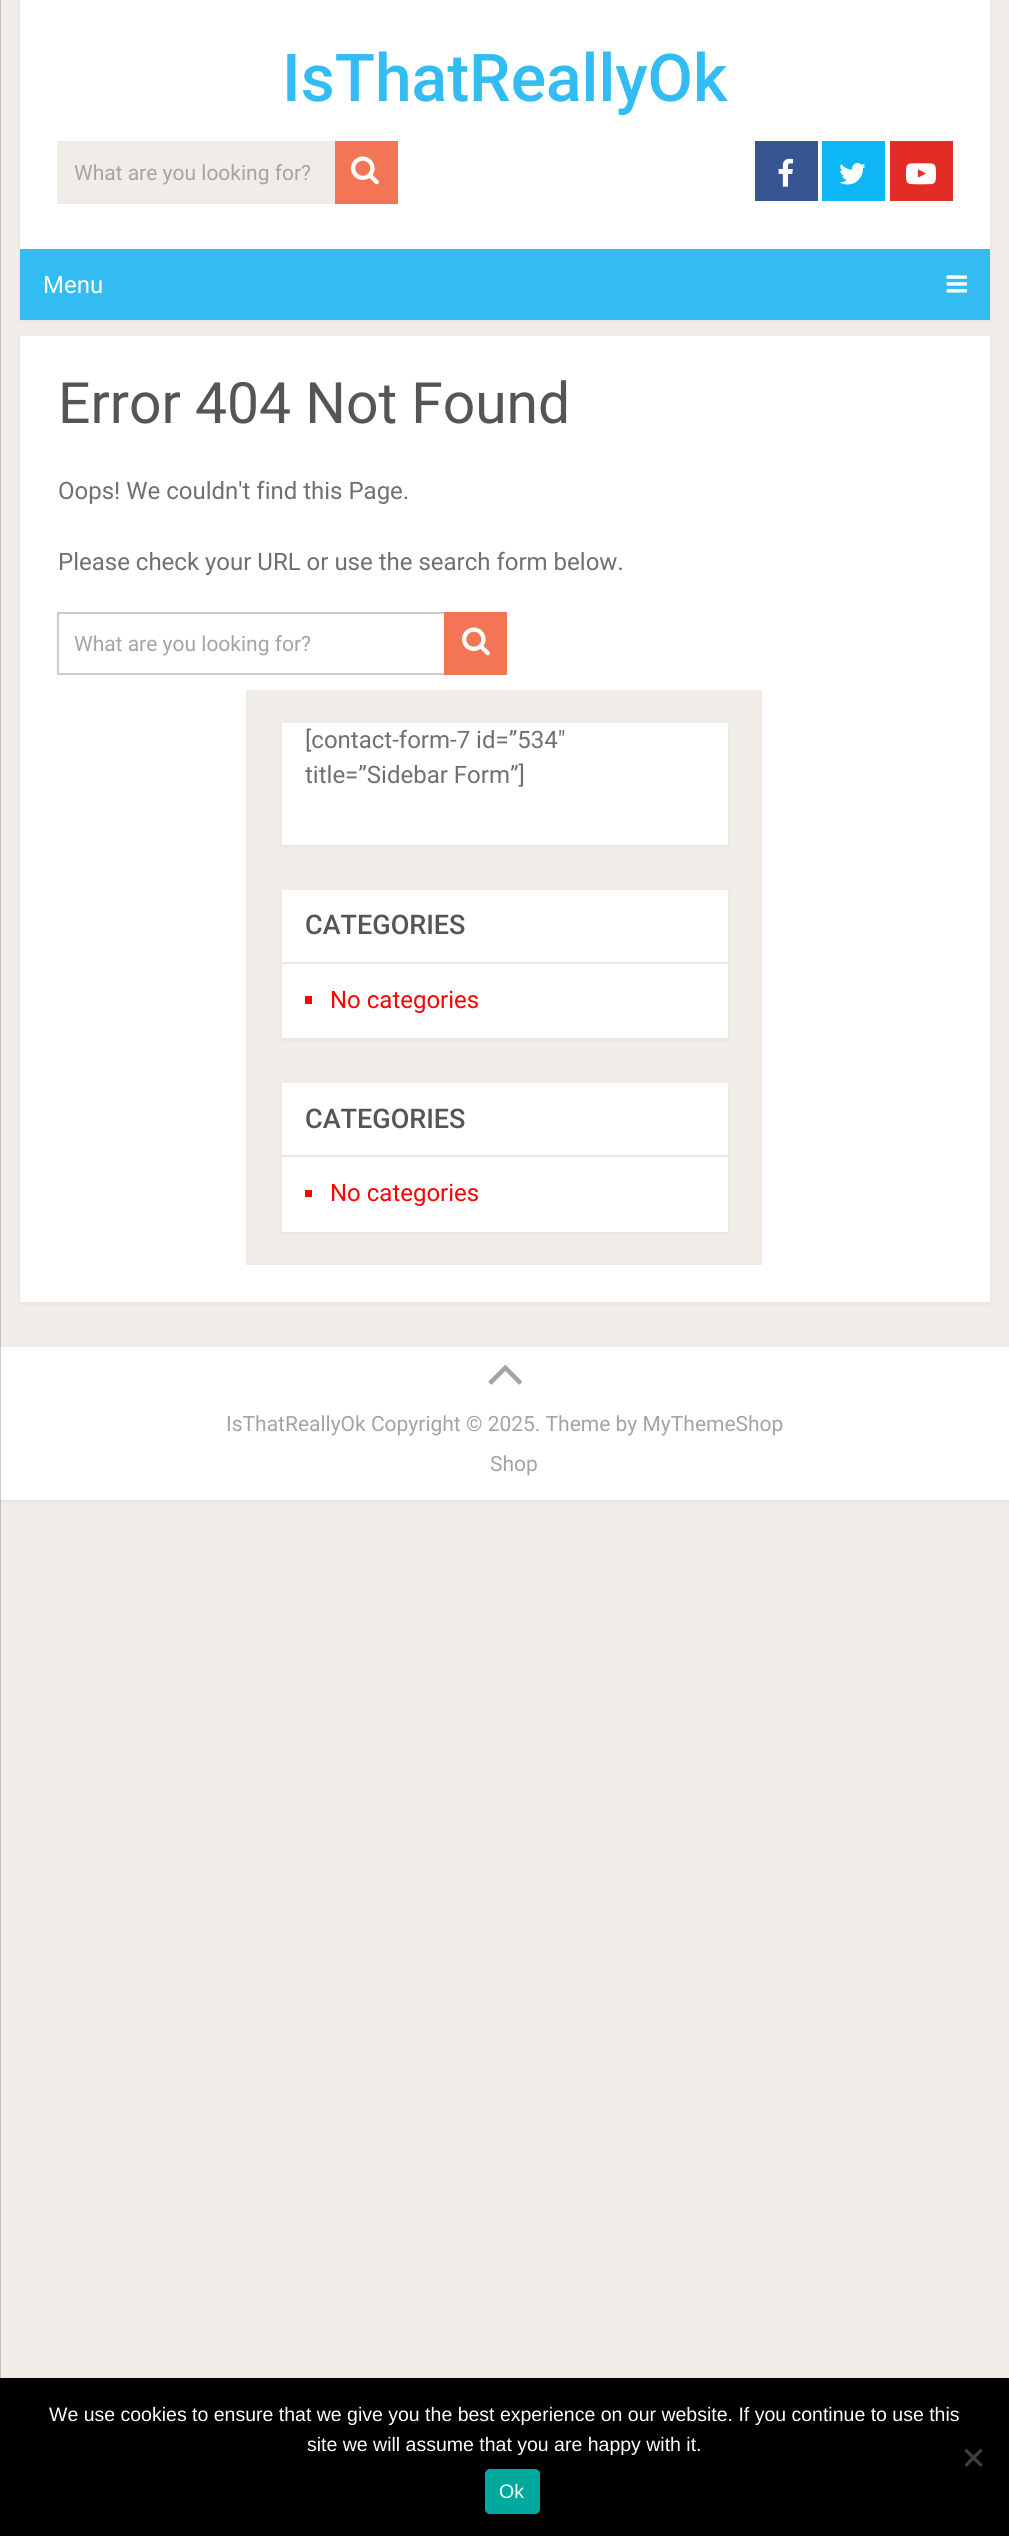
import math
import cairo

surface = cairo.ImageSurface(cairo.FORMAT_RGB24, 1009, 2536)
ctx = cairo.Context(surface)
options = cairo.FontOptions()
options.set_hint_metrics(cairo.HINT_METRICS_OFF)
options.set_hint_style(cairo.HINT_STYLE_NONE)
ctx.set_font_options(options)
ctx.set_miter_limit(4)


def set_color(code):
    ctx.set_source_rgb(*(v / 255 for v in bytes.fromhex(code[-6:])))


def draw_text(x, y, s, family, size, color, bold=False, italic=False):
    ctx.select_font_face(family, cairo.FONT_SLANT_ITALIC if italic else cairo.FONT_SLANT_NORMAL, cairo.FONT_WEIGHT_BOLD if bold else cairo.FONT_WEIGHT_NORMAL)
    ctx.set_font_size(size)
    set_color(color)
    ctx.move_to(x, y)
    ctx.show_text(s)


def fill_rect(x, y, w, h, color):
    set_color(color)
    ctx.rectangle(x, y, w, h)
    ctx.fill()


def rounded_rect(x, y, w, h, r):
    ctx.new_sub_path()
    for i, (u, v) in enumerate([(x + w - r, y + h - r), (x + r, y + h - r), (x + r, y + r), (x + w - r, y + r)]):
        ctx.arc(u, v, r, i * math.pi / 2, (i + 1) * math.pi / 2)
    ctx.close_path()


def draw_shadow(x, y, w, h, r, blur, alpha):
    ctx.push_group_with_content(cairo.CONTENT_ALPHA)
    ctx.set_operator(cairo.OPERATOR_SOURCE)
    for i in range(15, -16, -2):
        e = blur * i / 6
        if min(w, h) + 2 * e > 0:
            ctx.set_source_rgba(0, 0, 0, alpha * math.erfc((i - 1) / 8.5) / 2)
            rounded_rect(x - e, y - e, w + 2 * e, h + 2 * e, max(0, min(r + e + blur * .6, min(w, h) / 2 + e)))
            ctx.fill()
    ctx.mask(ctx.pop_group())


def draw_image(path, x, y, w, h):
    ctx.save()
    ctx.set_source_surface(cairo.ImageSurface.create_from_png(path), x, y)
    ctx.rectangle(x, y, w, h)
    ctx.fill()
    ctx.restore()


set_color("#f0ede9")
ctx.paint()
set_color("#000000")
draw_shadow(20, 2, 970, 319, 0, 1.5, 0.05)
fill_rect(20, 0, 970, 249, "#ffffff")
draw_text(282, 101, "IsThatReallyOk", "Roboto Medium", 66, "#33bcf2")
fill_rect(59, 143, 276, 59, "#f0ede9")
ctx.rectangle(58, 142, 339, 61)
set_color("#efebe7")
ctx.stroke()
draw_text(74, 180, "What are you looking for?", "Roboto", 21, "#a4a4a4")
fill_rect(335, 141, 63, 63, "#f47555")
draw_image("assets/img1.png", 351, 156, 28, 29)
fill_rect(755, 141, 63, 60, "#375593")
draw_image("assets/img2.png", 778, 158, 16, 29)
fill_rect(822, 141, 63, 60, "#0eb6f6")
draw_image("assets/img3.png", 839, 163, 27, 22)
fill_rect(890, 141, 63, 60, "#e32c26")
draw_image("assets/img4.png", 906, 163, 30, 22)
fill_rect(20, 249, 970, 71, "#33bcf2")
set_color("#000000")
draw_shadow(0, 1349, 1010, 153, 0, 1.5, 0.05)
fill_rect(0, 1347, 1009, 153, "#ffffff")
ctx.set_source_rgba(0, 0, 0, 0.2)
ctx.rectangle(0, 0, 1, 2378)
ctx.fill()
draw_text(43, 293, "Menu", "Roboto", 24, "#ffffff")
draw_image("assets/img5.png", 946, 275, 22, 18)
set_color("#000000")
draw_shadow(20, 338, 970, 966, 0, 1.5, 0.05)
fill_rect(20, 336, 970, 966, "#ffffff")
draw_text(58, 423, "Error 404 Not Found", "Roboto", 57, "#555555")
draw_text(58, 499, "Oops! We couldn't find this Page.", "Roboto", 24, "#707070")
draw_text(58, 570, "Please check your URL or use the search form below.", "Roboto", 24, "#707070")
ctx.rectangle(58, 613, 448, 61)
set_color("#cccccc")
ctx.stroke()
draw_text(74, 651, "What are you looking for?", "Roboto", 21, "#a4a4a4")
fill_rect(444, 612, 63, 63, "#f47555")
draw_image("assets/img1.png", 462, 627, 28, 29)
fill_rect(246, 690, 516, 575, "#f0ede9")
set_color("#000000")
draw_shadow(282, 725, 446, 121, 0, 1.5, 0.05)
fill_rect(282, 723, 446, 122, "#ffffff")
draw_text(305, 748, "[contact-form-7 id=”534″", "Roboto", 24, "#707070")
draw_text(305, 783, "title=”Sidebar Form”]", "Roboto", 24, "#707070")
set_color("#000000")
draw_shadow(282, 891, 446, 149, 0, 1.5, 0.05)
fill_rect(282, 890, 446, 148, "#ffffff")
fill_rect(282, 962, 446, 2, "#e9e9e9")
draw_text(305, 934, "CATEGORIES", "Roboto Medium", 27, "#555555")
fill_rect(305, 996, 7, 8, "#ff0000")
draw_text(330, 1008, "No categories", "Roboto", 24, "#ff0000")
set_color("#000000")
draw_shadow(282, 1085, 446, 148, 0, 1.5, 0.05)
fill_rect(282, 1083, 446, 149, "#ffffff")
fill_rect(282, 1155, 446, 2, "#e9e9e9")
draw_text(305, 1128, "CATEGORIES", "Roboto Medium", 27, "#555555")
fill_rect(305, 1190, 7, 7, "#ff0000")
draw_text(330, 1201, "No categories", "Roboto", 24, "#ff0000")
draw_image("assets/img6.png", 488, 1365, 34, 20)
draw_text(226, 1431, "IsThatReallyOk Copyright © 2025. Theme by MyThemeShop", "Roboto", 21, "#a4a4a4")
draw_text(490, 1471, "Shop", "Roboto", 21, "#a4a4a4")
fill_rect(0, 2378, 1009, 158, "#000000")
draw_text(49, 2421, "We use cookies to ensure that we give you the best experience on our website. If you continue to use this", "Liberation Sans", 19.5, "#ffffff")
draw_text(307, 2451, "site we will assume that you are happy with it.", "Liberation Sans", 19.5, "#ffffff")
set_color("#404040")
ctx.new_path()
ctx.move_to(980.5, 2448.5)
ctx.line_to(982.5, 2451)
ctx.line_to(966.5, 2467)
ctx.line_to(964.5, 2464.5)
ctx.close_path()
ctx.fill()
ctx.new_path()
ctx.move_to(964.5, 2451)
ctx.line_to(966.5, 2448.5)
ctx.line_to(982.5, 2464.5)
ctx.line_to(980.5, 2467)
ctx.close_path()
ctx.fill()
set_color("#00a99d")
rounded_rect(485, 2469, 55, 45, 5)
ctx.fill()
draw_text(499, 2498, "Ok", "Liberation Sans", 19.5, "#ffffff")
surface.write_to_png("output.png")
